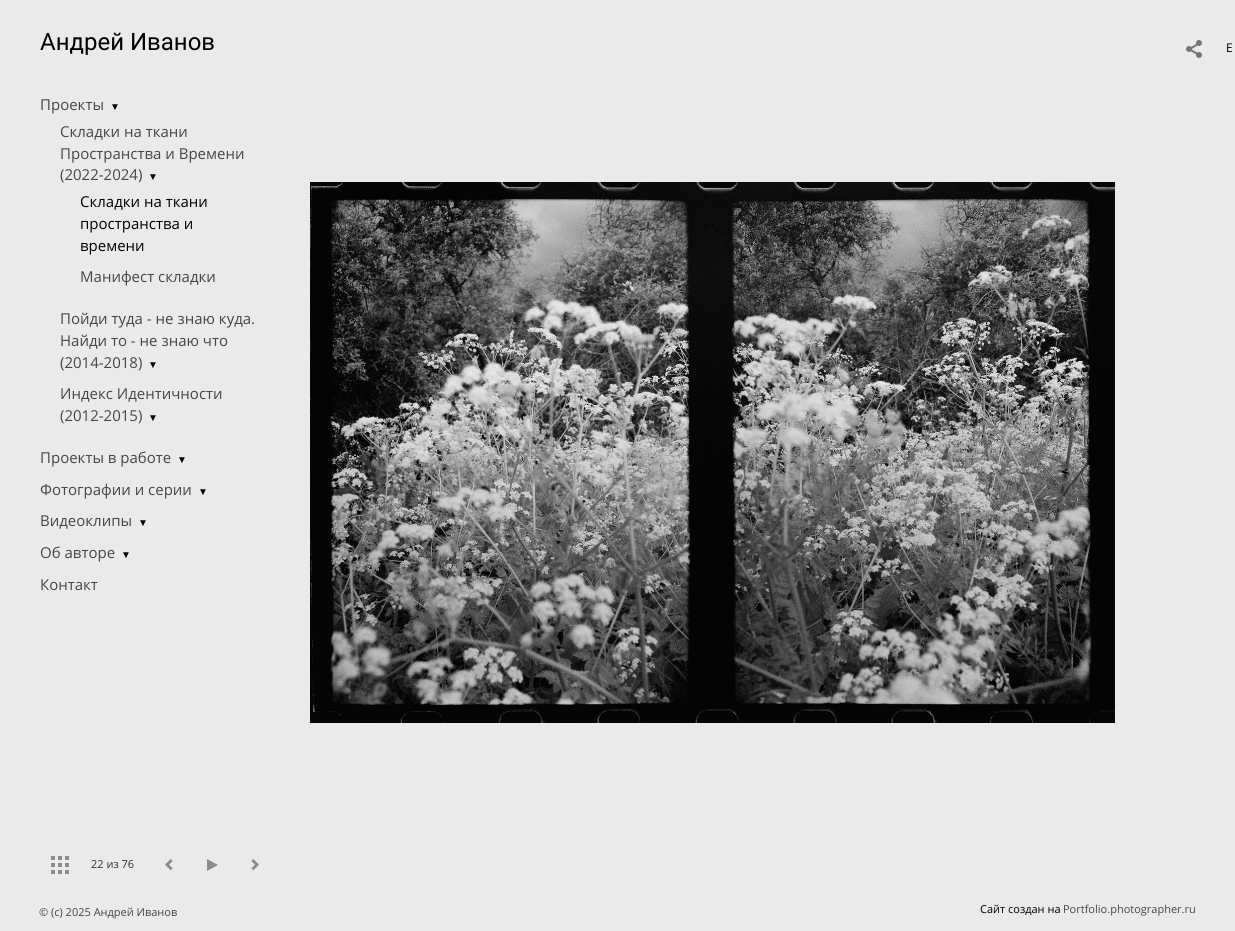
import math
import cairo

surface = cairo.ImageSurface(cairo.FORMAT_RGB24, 1235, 931)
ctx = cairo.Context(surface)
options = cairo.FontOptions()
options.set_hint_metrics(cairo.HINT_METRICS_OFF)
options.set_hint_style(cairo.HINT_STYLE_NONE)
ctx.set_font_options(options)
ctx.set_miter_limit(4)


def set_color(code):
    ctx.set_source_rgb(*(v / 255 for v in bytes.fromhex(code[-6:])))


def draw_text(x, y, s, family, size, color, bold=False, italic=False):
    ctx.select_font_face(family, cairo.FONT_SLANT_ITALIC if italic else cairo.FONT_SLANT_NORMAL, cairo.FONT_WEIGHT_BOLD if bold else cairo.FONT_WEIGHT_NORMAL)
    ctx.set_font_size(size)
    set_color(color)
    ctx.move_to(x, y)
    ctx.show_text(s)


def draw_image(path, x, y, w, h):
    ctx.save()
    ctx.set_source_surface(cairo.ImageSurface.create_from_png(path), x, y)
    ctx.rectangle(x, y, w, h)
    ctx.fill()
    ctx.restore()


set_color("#eaeaea")
ctx.paint()
draw_text(40, 50, "Андрей Иванов", "Roboto", 24, "#000000")
draw_text(40, 110, "Проекты", "Open Sans", 15, "#464646")
draw_text(110, 110, "▼", "Liberation Serif", 10, "#000000")
draw_text(60, 137, "Складки на ткани", "Open Sans", 15, "#464646")
draw_text(60, 159, "Пространства и Времени", "Open Sans", 15, "#464646")
draw_text(60, 180, "(2022-2024)", "Open Sans", 15, "#464646")
draw_text(148, 180, "▼", "Liberation Serif", 10, "#000000")
draw_text(80, 207, "Складки на ткани", "Open Sans", 15, "#000000")
draw_text(80, 229, "пространства и", "Open Sans", 15, "#000000")
draw_text(80, 251, "времени", "Open Sans", 15, "#000000")
draw_text(80, 282, "Манифест складки", "Open Sans", 15, "#464646")
draw_text(60, 324, "Пойди туда - не знаю куда.", "Open Sans", 15, "#464646")
draw_text(60, 346, "Найди то - не знаю что", "Open Sans", 15, "#464646")
draw_text(60, 368, "(2014-2018)", "Open Sans", 15, "#464646")
draw_text(148, 368, "▼", "Liberation Serif", 10, "#000000")
draw_text(60, 399, "Индекс Идентичности", "Open Sans", 15, "#464646")
draw_text(60, 421, "(2012-2015)", "Open Sans", 15, "#464646")
draw_text(148, 421, "▼", "Liberation Serif", 10, "#000000")
draw_text(40, 463, "Проекты в работе", "Open Sans", 15, "#464646")
draw_text(177, 463, "▼", "Liberation Serif", 10, "#000000")
draw_text(40, 495, "Фотографии и серии", "Open Sans", 15, "#464646")
draw_text(198, 495, "▼", "Liberation Serif", 10, "#000000")
draw_text(40, 526, "Видеоклипы", "Open Sans", 15, "#464646")
draw_text(138, 526, "▼", "Liberation Serif", 10, "#000000")
draw_text(40, 558, "Об авторе", "Open Sans", 15, "#464646")
draw_text(121, 558, "▼", "Liberation Serif", 10, "#000000")
draw_text(40, 590, "Контакт", "Open Sans", 15, "#464646")
draw_image("assets/img1.png", 51, 856, 18, 18)
draw_text(91, 868, "22 из 76", "Open Sans", 11, "#2f2f2f")
draw_image("assets/img2.png", 165, 859, 8, 12)
set_color("#8c8c8c")
ctx.new_path()
ctx.move_to(218, 865)
ctx.line_to(207, 871)
ctx.line_to(207, 859)
ctx.close_path()
ctx.fill()
draw_image("assets/img3.png", 251, 859, 8, 12)
draw_image("assets/img4.png", 1186, 40, 16, 18)
draw_text(1226, 52, "E", "Open Sans", 12, "#000000")
draw_image("assets/img5.png", 310, 182, 805, 541)
draw_text(39, 916, "© (c) 2025 Андрей Иванов", "Open Sans", 11, "#464646")
draw_text(980, 913, "Сайт создан на", "Open Sans", 11, "#000000")
draw_text(1063, 913, "Portfolio.photographer.ru", "Open Sans", 11, "#464646")
surface.write_to_png("output.png")
